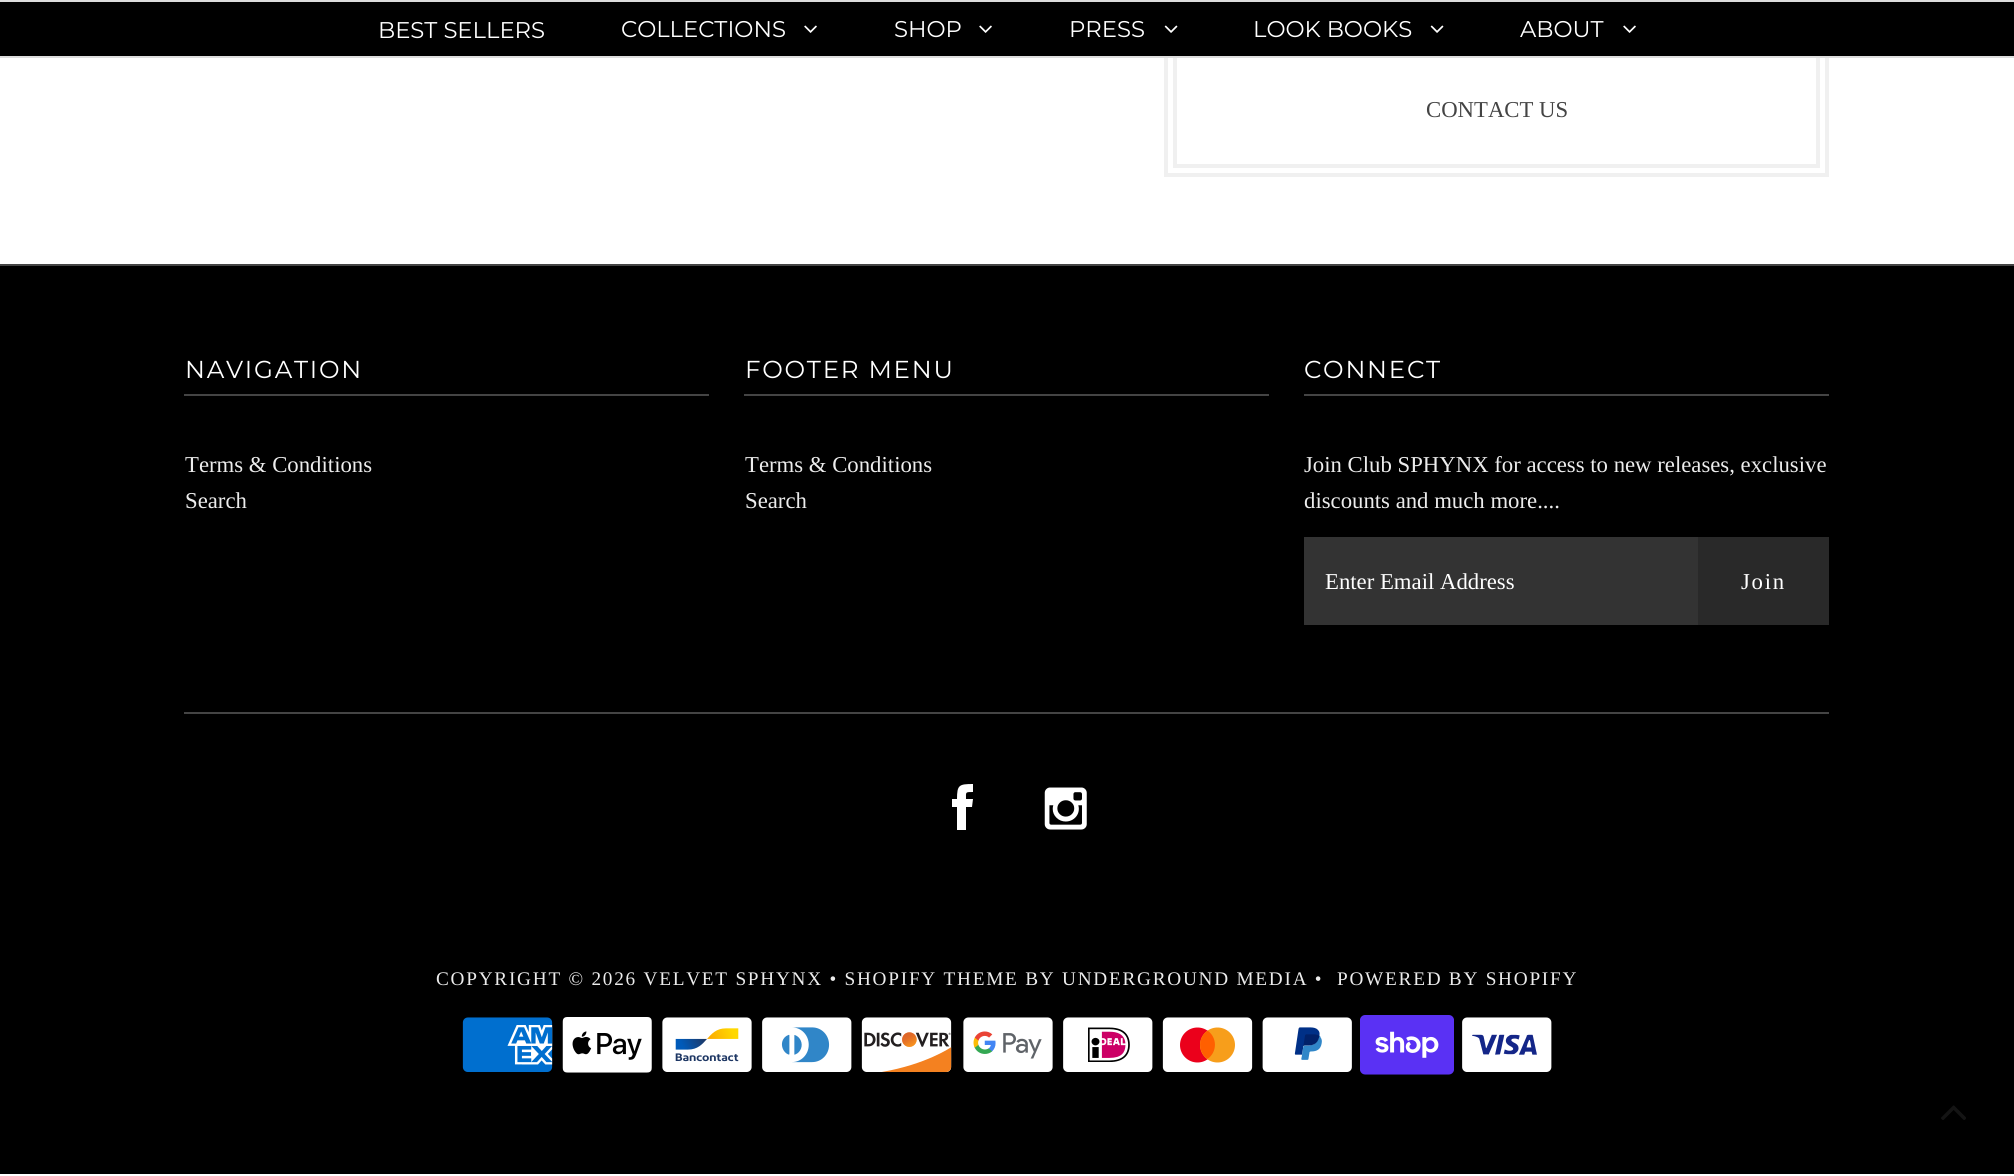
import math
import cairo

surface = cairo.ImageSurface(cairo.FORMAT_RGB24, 2014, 1176)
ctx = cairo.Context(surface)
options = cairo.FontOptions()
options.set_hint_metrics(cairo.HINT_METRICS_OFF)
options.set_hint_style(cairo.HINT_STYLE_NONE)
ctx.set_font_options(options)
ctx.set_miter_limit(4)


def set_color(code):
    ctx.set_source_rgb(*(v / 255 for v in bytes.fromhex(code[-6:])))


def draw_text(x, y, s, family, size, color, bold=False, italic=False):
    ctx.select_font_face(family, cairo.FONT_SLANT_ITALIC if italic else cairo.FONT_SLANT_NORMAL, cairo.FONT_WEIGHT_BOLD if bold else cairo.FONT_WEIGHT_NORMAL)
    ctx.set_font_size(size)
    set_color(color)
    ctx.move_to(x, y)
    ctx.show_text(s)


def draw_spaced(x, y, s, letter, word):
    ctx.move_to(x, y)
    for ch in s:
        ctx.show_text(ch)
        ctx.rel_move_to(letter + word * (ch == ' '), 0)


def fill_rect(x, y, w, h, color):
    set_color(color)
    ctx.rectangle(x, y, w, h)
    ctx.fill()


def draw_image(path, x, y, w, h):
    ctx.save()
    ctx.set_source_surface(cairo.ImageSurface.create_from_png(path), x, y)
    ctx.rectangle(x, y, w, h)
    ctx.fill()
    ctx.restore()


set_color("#ffffff")
ctx.paint()
ctx.rectangle(1166, -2, 661, 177)
set_color("#f0f0f0")
ctx.set_line_width(4)
ctx.stroke()
ctx.rectangle(1175, -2, 643, 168)
ctx.stroke()
fill_rect(0, 2, 2014, 54, "#000000")
fill_rect(0, 0, 2014, 2, "#dddddd")
fill_rect(0, 56, 2014, 2, "#dddddd")
draw_text(378, 38, "BEST SELLERS", "Montserrat", 22.75, "#ffffff")
draw_text(621, 37, "COLLECTIONS", "Montserrat", 22.75, "#ffffff")
draw_image("assets/img1.png", 804, 25, 13, 8)
draw_text(894, 37, "SHOP", "Montserrat", 22.75, "#ffffff")
draw_image("assets/img1.png", 979, 25, 13, 8)
draw_text(1069, 37, "PRESS", "Montserrat", 22.75, "#ffffff")
draw_image("assets/img2.png", 1164, 25, 14, 8)
draw_text(1253, 37, "LOOK BOOKS", "Montserrat", 22.75, "#ffffff")
draw_image("assets/img2.png", 1430, 25, 14, 8)
draw_text(1520, 37, "ABOUT", "Montserrat", 22.75, "#ffffff")
draw_image("assets/img1.png", 1623, 25, 13, 8)
draw_text(1426, 117, "CONTACT US", "Liberation Serif", 22.75, "#444444")
fill_rect(0, 266, 2014, 908, "#000000")
fill_rect(0, 264, 2014, 2, "#444444")
fill_rect(184, 394, 525, 2, "#444444")
ctx.select_font_face("Montserrat")
ctx.set_font_size(24.5)
set_color("#ffffff")
draw_spaced(185, 378, "NAVIGATION", 1.75, 0)
draw_text(185, 472, "Terms & Conditions", "Liberation Serif", 22.75, "#ececec")
draw_text(185, 508, "Search", "Liberation Serif", 22.75, "#ececec")
fill_rect(744, 394, 525, 2, "#444444")
ctx.select_font_face("Montserrat")
ctx.set_font_size(24.5)
set_color("#ffffff")
draw_spaced(745, 378, "FOOTER MENU", 1.75, 0)
draw_text(745, 472, "Terms & Conditions", "Liberation Serif", 22.75, "#ececec")
draw_text(745, 508, "Search", "Liberation Serif", 22.75, "#ececec")
fill_rect(1304, 394, 525, 2, "#444444")
ctx.select_font_face("Montserrat")
ctx.set_font_size(24.5)
set_color("#ffffff")
draw_spaced(1304, 378, "CONNECT", 1.75, 0)
draw_text(1304, 472, "Join Club SPHYNX for access to new releases, exclusive", "Liberation Serif", 22.75, "#ececec")
draw_text(1304, 508, "discounts and much more....", "Liberation Serif", 22.75, "#ececec")
fill_rect(1304, 537, 394, 88, "#333333")
draw_text(1325, 589, "Enter Email Address", "Liberation Serif", 22.75, "#ffffff")
fill_rect(1698, 537, 131, 88, "#292929")
set_color("#ffffff")
draw_spaced(1741, 589, "Join", 1.75, 0)
fill_rect(184, 712, 1645, 2, "#444444")
set_color("#ffffff")
ctx.new_path()
ctx.move_to(966, 799)
ctx.line_to(973, 799)
ctx.line_to(972, 807)
ctx.line_to(966, 807)
ctx.line_to(966, 830)
ctx.line_to(957, 830)
ctx.line_to(957, 807)
ctx.line_to(952, 807)
ctx.line_to(952, 799)
ctx.line_to(957, 799)
ctx.curve_to(957, 785, 959, 784, 973, 784)
ctx.line_to(973, 792)
ctx.curve_to(965, 792, 966, 792, 966, 799)
ctx.close_path()
ctx.fill()
draw_image("assets/img3.png", 1044, 787, 43, 43)
ctx.set_font_size(19.25)
set_color("#ececec")
draw_spaced(436, 985, "COPYRIGHT © 2026 VELVET SPHYNX • SHOPIFY THEME BY UNDERGROUND MEDIA •", 1.75, 0)
draw_spaced(1337, 985, "POWERED BY SHOPIFY", 1.75, 0)
draw_image("assets/img4.png", 462, 1017, 91, 55)
draw_image("assets/img5.png", 562, 1017, 90, 56)
draw_image("assets/img6.png", 662, 1017, 90, 55)
draw_image("assets/img7.png", 762, 1017, 90, 55)
draw_image("assets/img8.png", 861, 1017, 91, 55)
draw_image("assets/img9.png", 963, 1017, 90, 55)
draw_image("assets/img10.png", 1063, 1017, 90, 55)
draw_image("assets/img11.png", 1162, 1017, 91, 55)
draw_image("assets/img12.png", 1262, 1017, 90, 55)
draw_image("assets/img13.png", 1360, 1015, 94, 60)
draw_image("assets/img14.png", 1462, 1017, 90, 55)
draw_image("assets/img15.png", 1941, 1105, 25, 15)
surface.write_to_png("output.png")
